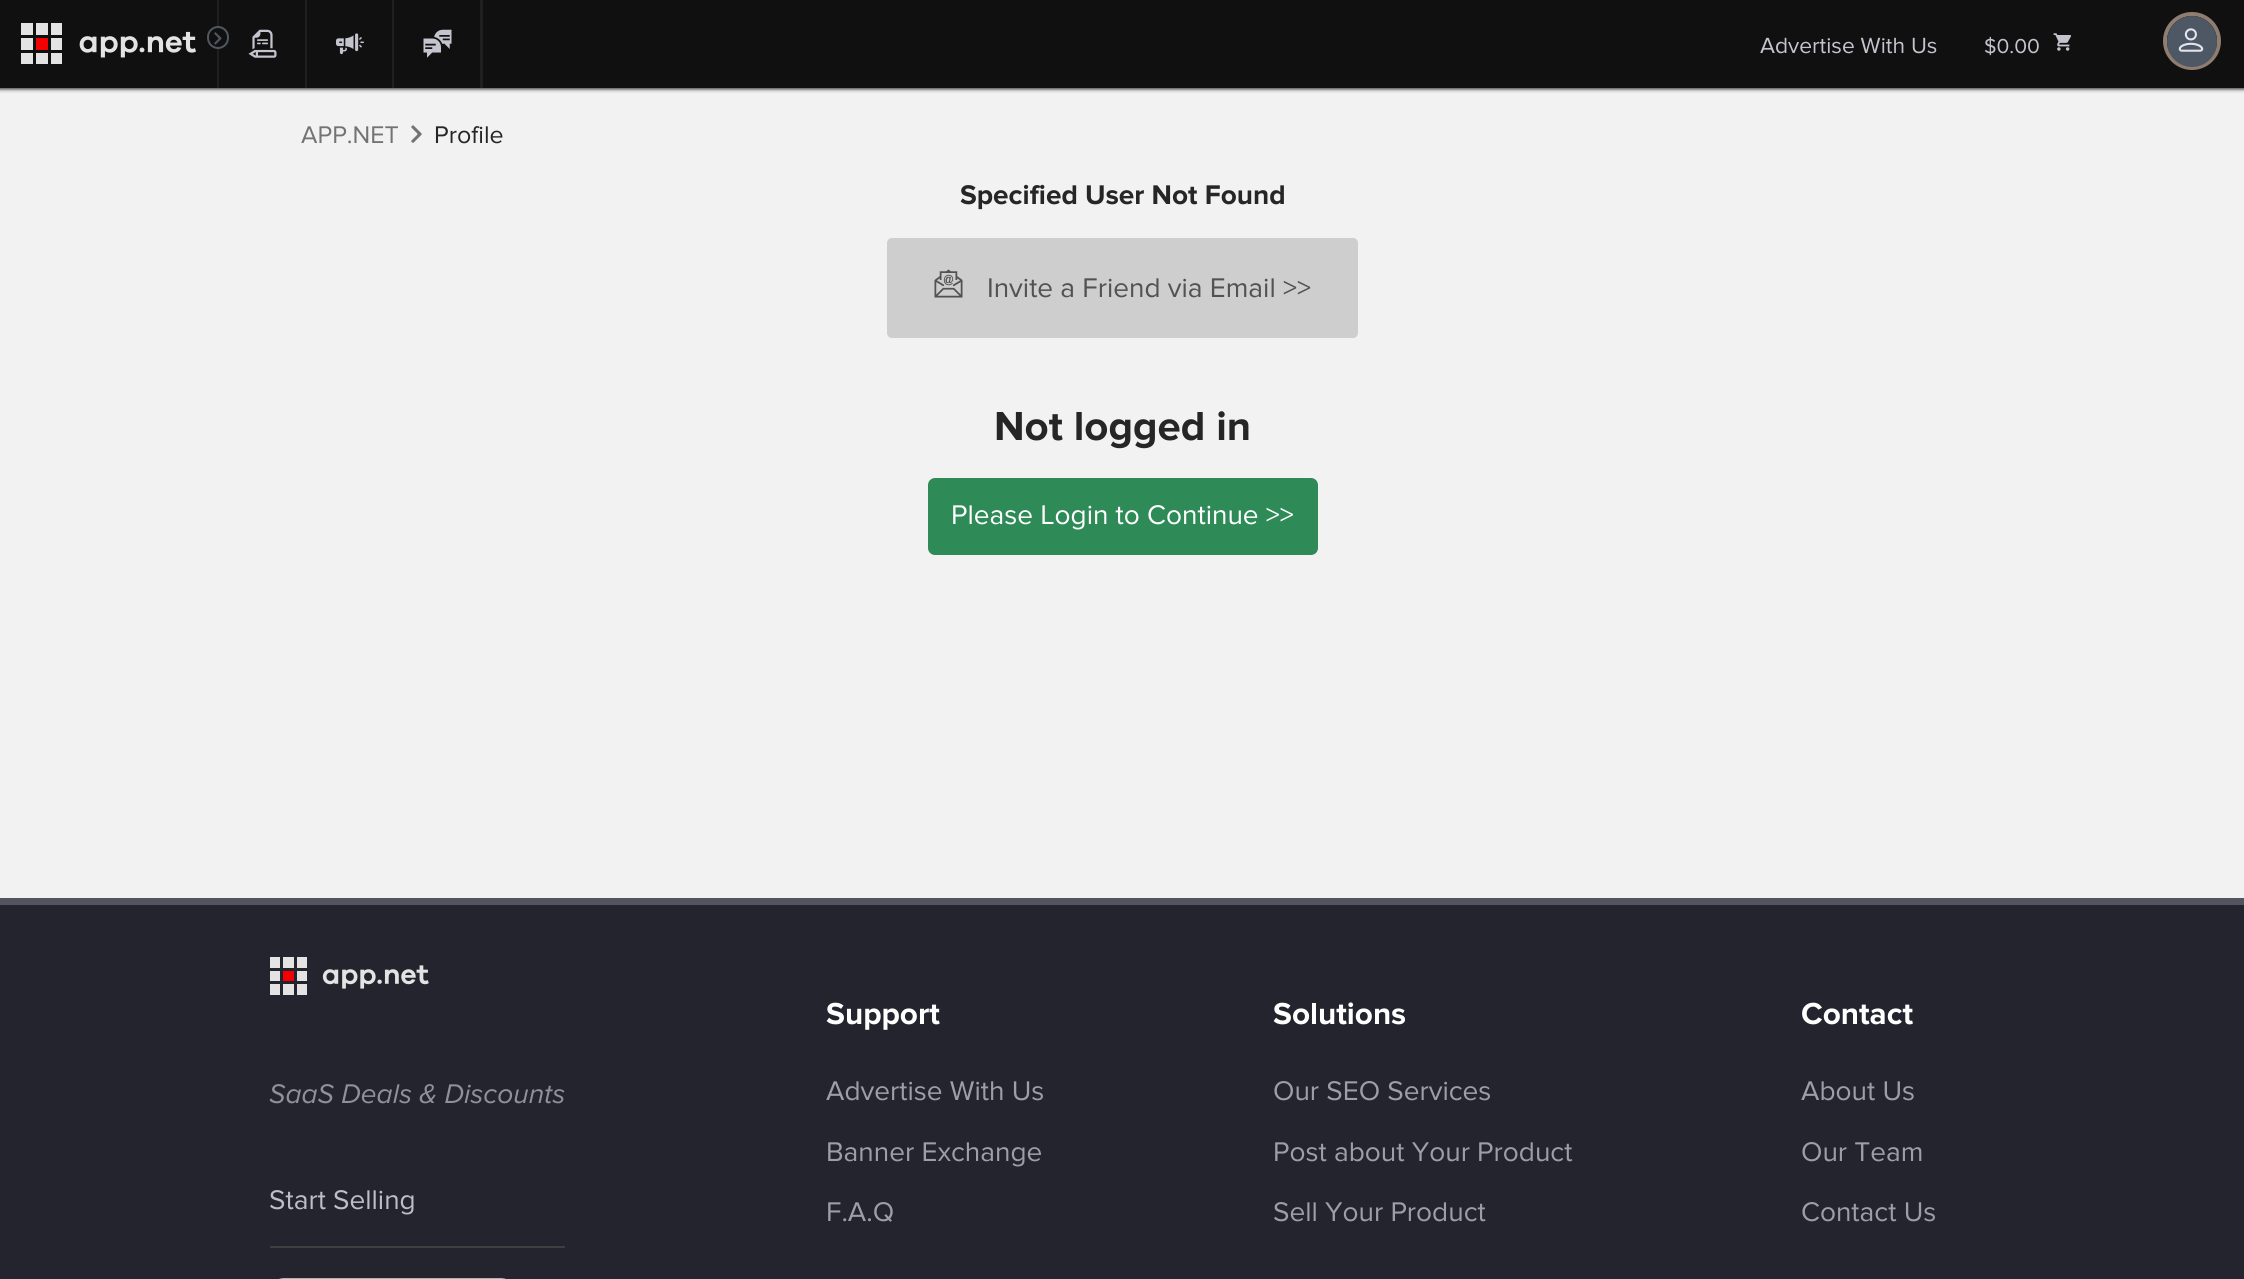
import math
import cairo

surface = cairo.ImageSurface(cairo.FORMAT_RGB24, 2244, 1279)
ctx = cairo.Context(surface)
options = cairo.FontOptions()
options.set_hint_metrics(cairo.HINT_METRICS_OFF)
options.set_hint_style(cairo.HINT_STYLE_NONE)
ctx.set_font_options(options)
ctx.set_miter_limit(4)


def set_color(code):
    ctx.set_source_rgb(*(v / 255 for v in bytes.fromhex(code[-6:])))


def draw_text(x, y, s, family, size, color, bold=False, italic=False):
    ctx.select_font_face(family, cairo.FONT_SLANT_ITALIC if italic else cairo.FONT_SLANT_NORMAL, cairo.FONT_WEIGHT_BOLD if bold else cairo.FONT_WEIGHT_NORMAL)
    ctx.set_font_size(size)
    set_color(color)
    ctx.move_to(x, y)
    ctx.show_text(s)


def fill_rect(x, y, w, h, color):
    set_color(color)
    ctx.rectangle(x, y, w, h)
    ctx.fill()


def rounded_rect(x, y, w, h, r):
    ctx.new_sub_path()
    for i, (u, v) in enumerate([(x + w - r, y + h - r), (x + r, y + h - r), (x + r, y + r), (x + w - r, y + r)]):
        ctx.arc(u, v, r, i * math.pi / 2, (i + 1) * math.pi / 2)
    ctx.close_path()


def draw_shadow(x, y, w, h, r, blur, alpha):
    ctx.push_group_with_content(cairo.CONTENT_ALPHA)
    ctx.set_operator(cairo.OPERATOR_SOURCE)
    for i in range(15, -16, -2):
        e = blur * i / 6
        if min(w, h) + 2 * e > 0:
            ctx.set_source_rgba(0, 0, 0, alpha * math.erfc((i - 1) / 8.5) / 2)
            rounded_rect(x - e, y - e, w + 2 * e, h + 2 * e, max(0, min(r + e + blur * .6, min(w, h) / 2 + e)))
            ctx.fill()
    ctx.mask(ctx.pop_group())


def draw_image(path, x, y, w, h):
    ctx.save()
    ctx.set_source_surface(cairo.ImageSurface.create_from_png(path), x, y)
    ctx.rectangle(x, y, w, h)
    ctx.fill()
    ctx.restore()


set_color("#f2f2f2")
ctx.paint()
set_color("#202020")
draw_shadow(-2, -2, 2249, 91, 0, 2, 1)
fill_rect(0, 0, 2244, 88, "#101010")
draw_image("assets/img1.png", 21, 23, 175, 41)
fill_rect(217, 0, 2, 88, "#202020")
set_color("#101010")
rounded_rect(208, 27, 20, 21, 10)
ctx.fill_preserve()
set_color("#4e5864")
ctx.stroke()
draw_image("assets/img2.png", 214, 32, 8, 13)
draw_image("assets/img3.png", 248, 29, 29, 29)
fill_rect(305, 0, 2, 88, "#202020")
draw_image("assets/img4.png", 336, 33, 28, 22)
fill_rect(392, 0, 2, 88, "#202020")
draw_image("assets/img5.png", 423, 29, 29, 29)
fill_rect(480, 0, 3, 88, "#202020")
draw_text(1760, 53, "Advertise With Us", "Proxima Nova", 22.75, "#c4c4cf")
draw_text(1984, 53, "$0.00", "Proxima Nova", 21, "#c4c4cf")
draw_image("assets/img6.png", 2053, 33, 19, 18)
ctx.arc(2192, 41, 27, 0, 2 * math.pi)
set_color("#8f7d6f")
ctx.set_line_width(4)
ctx.stroke()
set_color("#4e5864")
rounded_rect(2167, 16, 50, 51, 25)
ctx.fill()
draw_image("assets/img7.png", 2178, 28, 26, 24)
draw_text(301, 143, "APP.NET", "Proxima Nova", 25, "#737373")
draw_image("assets/img8.png", 411, 125, 11, 18)
draw_text(434, 143, "Profile", "Proxima Nova", 25, "#262626")
draw_text(960, 204, "Specified User Not Found", "Proxima Nova", 28, "#262626", bold=True)
set_color("#cecece")
rounded_rect(887, 238, 471, 100, 5)
ctx.fill()
draw_image("assets/img9.png", 934, 269, 29, 29)
draw_text(987, 297, "Invite a Friend via Email >>", "Proxima Nova", 28, "#525252")
draw_text(994, 440, "Not logged in", "Proxima Nova", 42, "#262626", bold=True)
set_color("#2e8b57")
rounded_rect(928, 478, 390, 77, 7)
ctx.fill()
draw_text(951, 524, "Please Login to Continue >>", "Proxima Nova", 28, "#ffffff")
fill_rect(0, 905, 2244, 374, "#24242f")
fill_rect(0, 898, 2244, 7, "#54545f")
draw_image("assets/img10.png", 270, 957, 159, 38)
draw_text(269, 1103, "SaaS Deals & Discounts", "Proxima Nova", 28, "#90909a", italic=True)
draw_text(269, 1209, "Start Selling", "Proxima Nova", 28, "#bebec8")
fill_rect(270, 1246, 295, 2, "#3f3f3f")
set_color("#b3b3b3")
rounded_rect(270, 1278, 245, 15, 14)
ctx.fill()
draw_text(826, 1024, "Support", "Proxima Nova", 31.5, "#ffffff", bold=True)
draw_text(826, 1100, "Advertise With Us", "Proxima Nova", 28, "#9d9ea7")
draw_text(826, 1161, "Banner Exchange", "Proxima Nova", 28, "#9d9ea7")
draw_text(826, 1221, "F.A.Q", "Proxima Nova", 28, "#9d9ea7")
draw_text(1273, 1024, "Solutions", "Proxima Nova", 31.5, "#ffffff", bold=True)
draw_text(1273, 1100, "Our SEO Services", "Proxima Nova", 28, "#9d9ea7")
draw_text(1273, 1161, "Post about Your Product", "Proxima Nova", 28, "#9d9ea7")
draw_text(1273, 1221, "Sell Your Product", "Proxima Nova", 28, "#9d9ea7")
draw_text(1801, 1024, "Contact", "Proxima Nova", 31.5, "#ffffff", bold=True)
draw_text(1801, 1100, "About Us", "Proxima Nova", 28, "#9d9ea7")
draw_text(1801, 1161, "Our Team", "Proxima Nova", 28, "#9d9ea7")
draw_text(1801, 1221, "Contact Us", "Proxima Nova", 28, "#9d9ea7")
surface.write_to_png("output.png")
